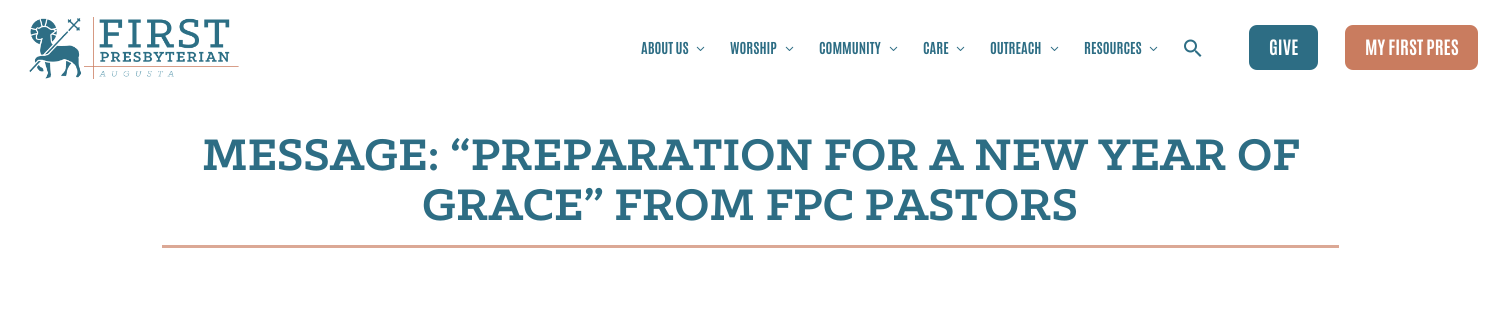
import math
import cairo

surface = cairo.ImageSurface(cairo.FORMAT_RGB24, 1501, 315)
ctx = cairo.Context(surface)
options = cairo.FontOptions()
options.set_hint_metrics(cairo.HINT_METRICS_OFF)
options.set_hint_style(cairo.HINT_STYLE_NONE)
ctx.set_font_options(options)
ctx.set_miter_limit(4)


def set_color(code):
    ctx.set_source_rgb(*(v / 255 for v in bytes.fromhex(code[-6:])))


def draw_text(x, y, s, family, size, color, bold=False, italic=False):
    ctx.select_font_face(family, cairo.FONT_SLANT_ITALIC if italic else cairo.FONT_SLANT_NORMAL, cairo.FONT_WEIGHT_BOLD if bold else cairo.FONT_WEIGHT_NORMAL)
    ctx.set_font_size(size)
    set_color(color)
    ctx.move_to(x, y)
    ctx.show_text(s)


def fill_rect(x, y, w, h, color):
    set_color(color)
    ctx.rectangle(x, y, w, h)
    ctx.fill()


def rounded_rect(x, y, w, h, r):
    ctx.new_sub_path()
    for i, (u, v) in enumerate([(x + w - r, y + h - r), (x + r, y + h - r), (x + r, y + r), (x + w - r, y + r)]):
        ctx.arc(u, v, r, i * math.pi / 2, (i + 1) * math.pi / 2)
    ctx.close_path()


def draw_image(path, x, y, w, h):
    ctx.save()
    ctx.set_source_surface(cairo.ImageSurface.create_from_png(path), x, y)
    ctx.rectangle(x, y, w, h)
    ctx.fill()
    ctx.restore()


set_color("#ffffff")
ctx.paint()
draw_image("assets/img1.png", 29, 17, 210, 62)
draw_text(641, 54, "ABOUT US", "Antonio", 14, "#2d6d84", bold=True)
draw_image("assets/img2.png", 696, 46, 9, 5)
draw_text(730, 54, "WORSHIP", "Antonio", 14, "#2d6d84", bold=True)
draw_image("assets/img2.png", 785, 46, 9, 5)
draw_text(819, 54, "COMMUNITY", "Antonio", 14, "#2d6d84", bold=True)
draw_image("assets/img2.png", 889, 46, 9, 5)
draw_text(923, 54, "CARE", "Antonio", 14, "#2d6d84", bold=True)
draw_image("assets/img2.png", 956, 46, 9, 5)
draw_text(990, 54, "OUTREACH", "Antonio", 14, "#2d6d84", bold=True)
draw_image("assets/img2.png", 1050, 46, 9, 5)
draw_text(1084, 54, "RESOURCES", "Antonio", 14, "#2d6d84", bold=True)
draw_image("assets/img2.png", 1149, 46, 9, 5)
draw_image("assets/img3.png", 1184, 39, 18, 18)
rounded_rect(1249, 25, 69, 45, 8)
ctx.fill()
draw_text(1269, 55, "GIVE", "Antonio", 18, "#ffffff", bold=True)
set_color("#c97c5f")
rounded_rect(1345, 25, 133, 45, 8)
ctx.fill()
draw_text(1365, 55, "MY FIRST PRES", "Antonio", 18, "#ffffff", bold=True)
draw_image("assets/img4.png", 203, 137, 1096, 34)
draw_image("assets/img5.png", 423, 187, 654, 34)
fill_rect(162, 245, 1177, 3, "#dba895")
surface.write_to_png("output.png")
